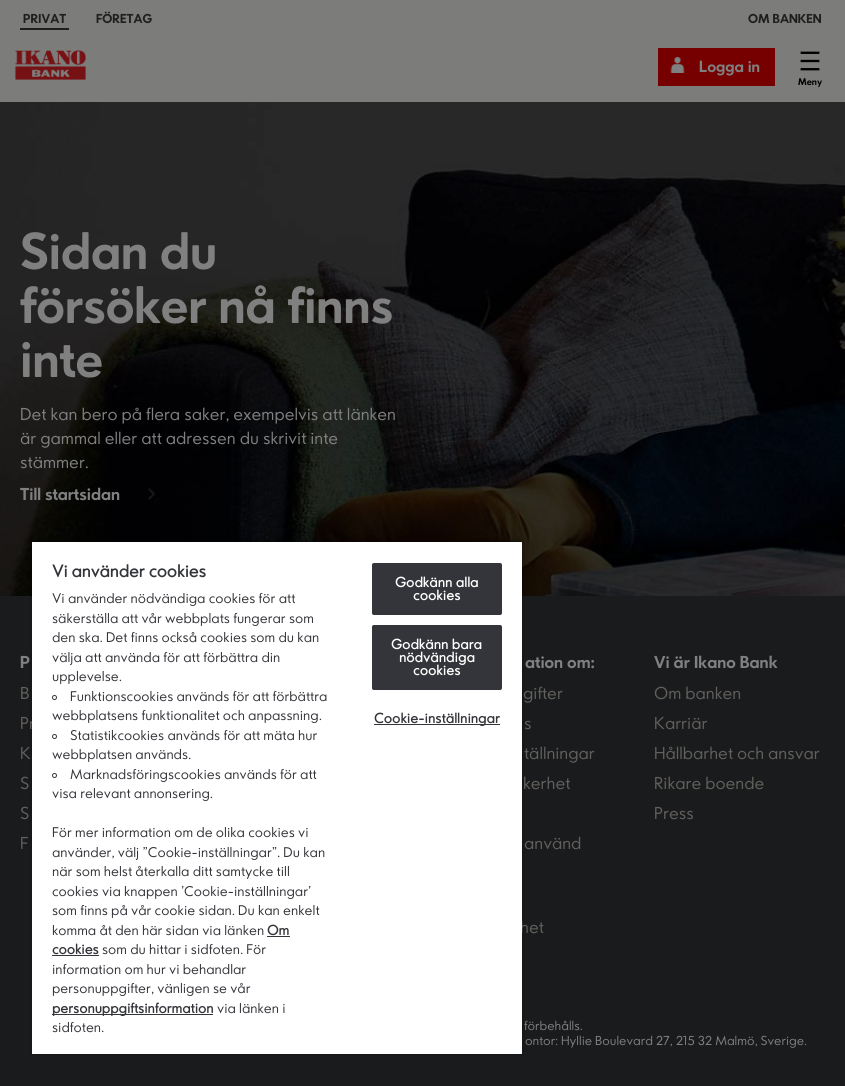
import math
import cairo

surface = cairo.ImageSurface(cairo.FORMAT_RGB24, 845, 1086)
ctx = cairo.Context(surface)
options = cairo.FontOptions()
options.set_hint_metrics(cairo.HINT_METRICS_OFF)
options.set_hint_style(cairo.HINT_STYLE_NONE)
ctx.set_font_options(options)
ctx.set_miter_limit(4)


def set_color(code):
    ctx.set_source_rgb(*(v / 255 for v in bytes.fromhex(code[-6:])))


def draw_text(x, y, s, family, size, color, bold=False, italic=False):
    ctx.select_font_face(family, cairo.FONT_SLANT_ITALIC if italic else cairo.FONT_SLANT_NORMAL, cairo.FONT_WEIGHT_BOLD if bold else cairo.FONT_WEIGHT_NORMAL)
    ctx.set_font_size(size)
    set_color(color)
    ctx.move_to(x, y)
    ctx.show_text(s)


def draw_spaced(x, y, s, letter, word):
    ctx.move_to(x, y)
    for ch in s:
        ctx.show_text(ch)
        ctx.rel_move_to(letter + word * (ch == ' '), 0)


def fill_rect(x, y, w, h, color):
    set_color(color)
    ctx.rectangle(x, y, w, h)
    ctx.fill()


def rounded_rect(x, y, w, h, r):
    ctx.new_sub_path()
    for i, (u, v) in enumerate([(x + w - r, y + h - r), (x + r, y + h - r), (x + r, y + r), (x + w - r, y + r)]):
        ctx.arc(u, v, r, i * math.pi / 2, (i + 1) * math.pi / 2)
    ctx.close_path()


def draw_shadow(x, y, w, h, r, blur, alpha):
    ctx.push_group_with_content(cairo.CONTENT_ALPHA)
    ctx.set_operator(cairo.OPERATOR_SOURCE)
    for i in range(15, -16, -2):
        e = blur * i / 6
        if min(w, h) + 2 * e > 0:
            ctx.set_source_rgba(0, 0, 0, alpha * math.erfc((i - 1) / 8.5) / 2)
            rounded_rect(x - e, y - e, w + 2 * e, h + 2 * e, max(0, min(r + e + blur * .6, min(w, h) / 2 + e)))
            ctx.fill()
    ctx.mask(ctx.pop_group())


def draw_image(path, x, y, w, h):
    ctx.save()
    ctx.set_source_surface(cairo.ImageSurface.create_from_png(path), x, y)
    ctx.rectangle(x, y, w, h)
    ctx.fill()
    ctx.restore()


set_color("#7c7c7b")
ctx.paint()
fill_rect(20, 28, 49, 2, "#1f1f1d")
draw_text(23, 23, "PRIVAT", "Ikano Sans", 12, "#1f1f1d", bold=True)
draw_text(96, 23, "FÖRETAG", "Ikano Sans", 12, "#1f1f1d", bold=True)
draw_text(748, 23, "OM BANKEN", "Ikano Sans", 12, "#1f1f1d", bold=True)
draw_image("assets/img1.png", 15, 50, 71, 30)
fill_rect(658, 48, 117, 38, "#760000")
draw_image("assets/img2.png", 670, 57, 15, 16)
draw_text(699, 72, "Logga in", "Ikano Sans", 15, "#808080", bold=True)
draw_image("assets/img3.png", 800, 51, 20, 20)
draw_text(798, 85, "Meny", "Ikano Sans", 9, "#000000", bold=True)
draw_image("assets/img4.png", 0, 102, 845, 494)
draw_text(20, 269, "Sidan du", "Ikano Sans", 48, "#808080", bold=True)
draw_text(20, 323, "försöker nå finns", "Ikano Sans", 48, "#808080", bold=True)
draw_text(20, 377, "inte", "Ikano Sans", 48, "#808080", bold=True)
draw_text(20, 420, "Det kan bero på flera saker, exempelvis att länken", "Ikano Sans Light", 16, "#808080")
draw_text(20, 444, "är gammal eller att adressen du skrivit inte", "Ikano Sans Light", 16, "#808080")
draw_text(20, 468, "stämmer.", "Ikano Sans Light", 16, "#808080")
draw_text(20, 500, "Till startsidan", "Ikano Sans", 16, "#808080", bold=True)
draw_image("assets/img5.png", 148, 488, 7, 12)
fill_rect(0, 596, 845, 490, "#1a1b1d")
set_color("#000000")
draw_shadow(32, 540, 490, 514, 0, 2, 0.35)
ctx.save()
ctx.rectangle(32, 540, 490, 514)
ctx.clip()
draw_shadow(32, 542, 490, 512, 0, 2, 0.2)
ctx.restore()
draw_text(20, 729, "Pr", "Ikano Sans Light", 16, "#62605c")
draw_text(520, 933, "het", "Ikano Sans Light", 16, "#62605c")
fill_rect(32, 542, 490, 512, "#ffffff")
draw_text(52, 577, "Vi använder cookies", "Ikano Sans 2", 16, "#34353a", bold=True)
draw_text(52, 603, "Vi använder nödvändiga cookies för att", "Ikano Sans Light", 13, "#34353a")
draw_text(52, 623, "säkerställa att vår webbplats fungerar som", "Ikano Sans Light", 13, "#34353a")
draw_text(52, 642, "den ska. Det finns också cookies som du kan", "Ikano Sans Light", 13, "#34353a")
draw_text(52, 662, "välja att använda för att förbättra din", "Ikano Sans Light", 13, "#34353a")
draw_text(52, 681, "upplevelse.", "Ikano Sans Light", 13, "#34353a")
ctx.new_path()
ctx.arc(54.5, 697.5, 2, 0, 2 * math.pi)
ctx.set_line_width(1)
ctx.stroke()
draw_text(70, 701, "Funktionscookies används för att förbättra", "Ikano Sans Light", 13, "#34353a")
draw_text(52, 720, "webbplatsens funktionalitet och anpassning.", "Ikano Sans Light", 13, "#34353a")
ctx.new_path()
ctx.arc(54.5, 736.5, 2, 0, 2 * math.pi)
ctx.stroke()
draw_text(70, 740, "Statistikcookies används för att mäta hur", "Ikano Sans Light", 13, "#34353a")
draw_text(52, 759, "webbplatsen används.", "Ikano Sans Light", 13, "#34353a")
ctx.new_path()
ctx.arc(54.5, 775.5, 2, 0, 2 * math.pi)
ctx.stroke()
draw_text(70, 779, "Marknadsföringscookies används för att", "Ikano Sans Light", 13, "#34353a")
draw_text(52, 798, "visa relevant annonsering.", "Ikano Sans Light", 13, "#34353a")
draw_text(52, 837, "För mer information om de olika cookies vi", "Ikano Sans Light", 13, "#34353a")
draw_text(52, 857, "använder, välj \"Cookie-inställningar”. Du kan", "Ikano Sans Light", 13, "#34353a")
draw_text(52, 876, "när som helst återkalla ditt samtycke till", "Ikano Sans Light", 13, "#34353a")
draw_text(52, 896, "cookies via knappen 'Cookie-inställningar'", "Ikano Sans Light", 13, "#34353a")
draw_text(52, 915, "som finns på vår cookie sidan. Du kan enkelt", "Ikano Sans Light", 13, "#34353a")
draw_text(52, 935, "komma åt den här sidan via länken", "Ikano Sans Light", 13, "#34353a")
draw_text(267, 935, "Om", "Ikano Sans 2", 13, "#34353a", bold=True)
fill_rect(267, 936, 23, 1, "#34353a")
draw_text(52, 954, "cookies", "Ikano Sans 2", 13, "#34353a", bold=True)
fill_rect(52, 955, 47, 1, "#34353a")
draw_text(102, 954, "som du hittar i sidfoten. För", "Ikano Sans Light", 13, "#34353a")
draw_text(52, 974, "information om hur vi behandlar", "Ikano Sans Light", 13, "#34353a")
draw_text(52, 993, "personuppgifter, vänligen se vår", "Ikano Sans Light", 13, "#34353a")
fill_rect(52, 1014, 161, 1, "#34353a")
draw_text(52, 1013, "personuppgiftsinformation", "Ikano Sans 2", 13, "#34353a", bold=True)
draw_text(217, 1013, "via länken i", "Ikano Sans Light", 13, "#34353a")
draw_text(52, 1032, "sidfoten.", "Ikano Sans Light", 13, "#34353a")
rounded_rect(372.5, 563.5, 129, 51, 1.5)
ctx.fill_preserve()
ctx.stroke()
ctx.select_font_face("Ikano Sans 2", cairo.FONT_SLANT_NORMAL, cairo.FONT_WEIGHT_BOLD)
set_color("#ffffff")
draw_spaced(395, 587, "Godkänn alla", 0.1, 0)
draw_spaced(413, 600, "cookies", 0.1, 0)
set_color("#34353a")
rounded_rect(372.5, 625.5, 129, 64, 1.5)
ctx.fill_preserve()
ctx.stroke()
set_color("#ffffff")
draw_spaced(391, 649, "Godkänn bara", 0.1, 0)
draw_spaced(399, 662, "nödvändiga", 0.1, 0)
draw_spaced(413, 675, "cookies", 0.1, 0)
fill_rect(374, 724, 126, 1, "#34353a")
draw_spaced(374, 723, "Cookie-inställningar", 0.1, 0)
draw_text(20, 668, "P", "Ikano Sans", 16, "#808080", bold=True)
draw_text(20, 699, "B", "Ikano Sans Light", 16, "#62605c")
draw_text(20, 759, "K", "Ikano Sans Light", 16, "#62605c")
draw_text(20, 789, "S", "Ikano Sans Light", 16, "#62605c")
draw_text(20, 819, "S", "Ikano Sans Light", 16, "#62605c")
draw_text(20, 849, "F", "Ikano Sans Light", 16, "#62605c")
draw_text(525, 668, "ation om:", "Ikano Sans", 16, "#808080", bold=True)
draw_text(523, 699, "gifter", "Ikano Sans Light", 16, "#62605c")
draw_text(524, 729, "s", "Ikano Sans Light", 16, "#62605c")
draw_text(524, 759, "tällningar", "Ikano Sans Light", 16, "#62605c")
draw_text(523, 789, "kerhet", "Ikano Sans Light", 16, "#62605c")
draw_text(524, 849, "använd", "Ikano Sans Light", 16, "#62605c")
draw_text(654, 668, "Vi är Ikano Bank", "Ikano Sans", 16, "#808080", bold=True)
draw_text(654, 699, "Om banken", "Ikano Sans Light", 16, "#62605c")
draw_text(654, 729, "Karriär", "Ikano Sans Light", 16, "#62605c")
draw_text(654, 759, "Hållbarhet och ansvar", "Ikano Sans Light", 16, "#62605c")
draw_text(654, 789, "Rikare boende", "Ikano Sans Light", 16, "#62605c")
draw_text(654, 819, "Press", "Ikano Sans Light", 16, "#62605c")
draw_text(524, 1030, "förbehålls.", "Ikano Sans Light", 12, "#808080")
draw_text(525, 1045, "ontor: Hyllie Boulevard 27, 215 32 Malmö, Sverige.", "Ikano Sans Light", 12, "#808080")
surface.write_to_png("output.png")
